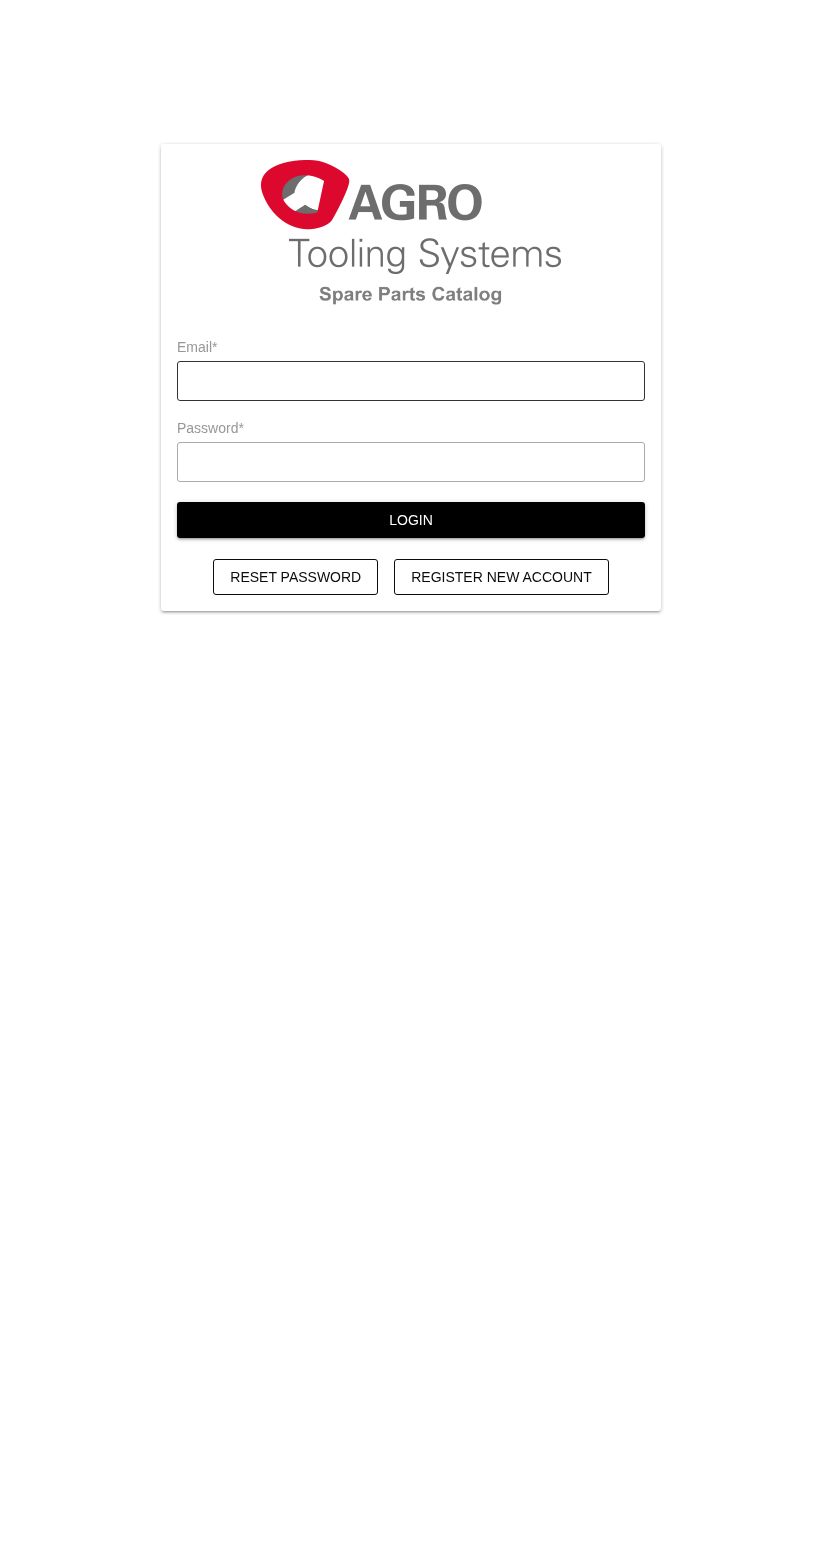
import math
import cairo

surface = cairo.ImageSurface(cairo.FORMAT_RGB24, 822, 1543)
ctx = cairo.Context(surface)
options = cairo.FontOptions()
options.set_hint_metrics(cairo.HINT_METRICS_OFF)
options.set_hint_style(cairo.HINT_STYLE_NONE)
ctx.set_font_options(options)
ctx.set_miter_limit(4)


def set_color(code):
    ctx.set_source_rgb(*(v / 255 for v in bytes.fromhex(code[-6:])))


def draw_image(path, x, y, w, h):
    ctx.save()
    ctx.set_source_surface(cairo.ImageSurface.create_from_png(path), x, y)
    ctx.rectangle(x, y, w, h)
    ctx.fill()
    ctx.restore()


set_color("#ffffff")
ctx.paint()
draw_image("assets/img1.png", 158, 142, 506, 473)
surface.write_to_png("output.png")
